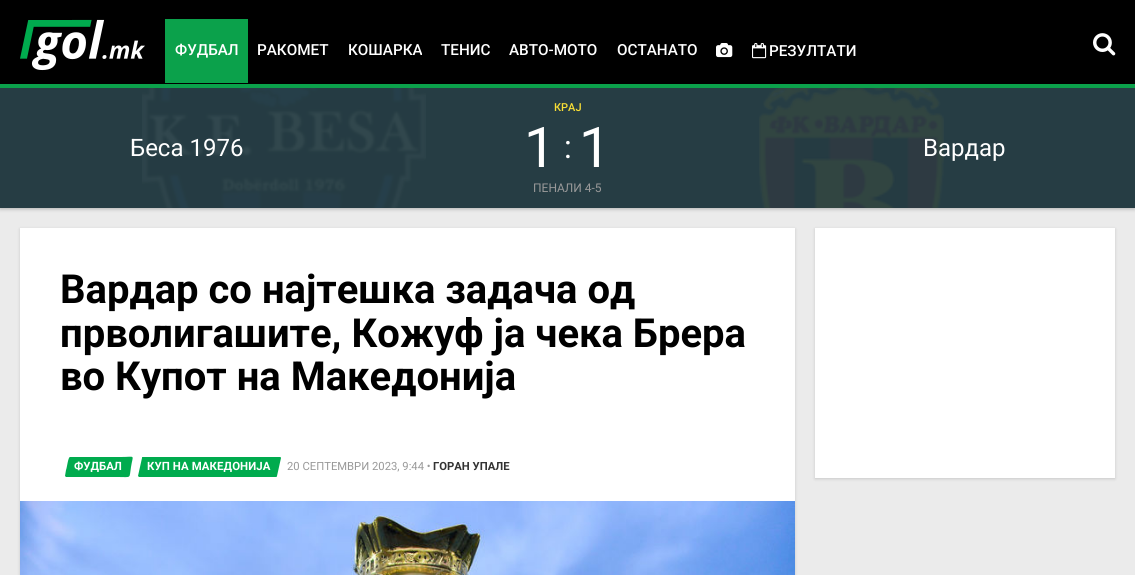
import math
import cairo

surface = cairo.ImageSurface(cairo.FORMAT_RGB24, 1135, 575)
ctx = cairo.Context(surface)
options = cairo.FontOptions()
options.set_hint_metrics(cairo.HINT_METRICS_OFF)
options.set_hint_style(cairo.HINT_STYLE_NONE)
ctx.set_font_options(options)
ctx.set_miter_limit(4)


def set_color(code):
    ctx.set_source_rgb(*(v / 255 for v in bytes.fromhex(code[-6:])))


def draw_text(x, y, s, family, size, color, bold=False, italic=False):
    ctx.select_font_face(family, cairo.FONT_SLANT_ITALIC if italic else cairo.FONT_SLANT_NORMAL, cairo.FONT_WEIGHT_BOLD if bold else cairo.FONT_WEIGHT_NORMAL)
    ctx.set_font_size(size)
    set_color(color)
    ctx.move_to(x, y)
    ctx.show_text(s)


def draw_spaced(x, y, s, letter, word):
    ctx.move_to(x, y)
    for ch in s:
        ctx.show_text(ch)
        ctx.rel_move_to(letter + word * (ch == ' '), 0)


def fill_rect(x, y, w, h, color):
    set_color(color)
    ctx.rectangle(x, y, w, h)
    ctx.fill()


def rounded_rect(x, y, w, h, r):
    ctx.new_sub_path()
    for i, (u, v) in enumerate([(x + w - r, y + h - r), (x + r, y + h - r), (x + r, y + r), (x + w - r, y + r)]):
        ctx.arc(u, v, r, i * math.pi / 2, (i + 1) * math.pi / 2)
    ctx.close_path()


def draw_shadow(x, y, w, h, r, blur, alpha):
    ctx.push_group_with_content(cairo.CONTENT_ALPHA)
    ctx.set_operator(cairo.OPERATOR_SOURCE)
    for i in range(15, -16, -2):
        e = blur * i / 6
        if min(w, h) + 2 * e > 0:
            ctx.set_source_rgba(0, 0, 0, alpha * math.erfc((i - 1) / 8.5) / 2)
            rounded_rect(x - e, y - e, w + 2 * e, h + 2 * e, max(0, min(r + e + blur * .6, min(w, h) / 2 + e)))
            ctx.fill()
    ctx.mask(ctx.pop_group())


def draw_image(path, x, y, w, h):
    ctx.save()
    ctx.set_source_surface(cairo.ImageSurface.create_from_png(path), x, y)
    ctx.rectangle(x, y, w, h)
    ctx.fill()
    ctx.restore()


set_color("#ebebeb")
ctx.paint()
fill_rect(0, 0, 1135, 84, "#000000")
draw_image("assets/img1.png", 20, 19, 125, 52)
set_color("#000000")
draw_shadow(0, 85, 1135, 124, 0, 2, 0.25)
fill_rect(165, 19, 83, 64, "#0ba14b")
draw_text(175, 55, "ФУДБАЛ", "Roboto Medium", 15.25, "#ffffff")
draw_text(257, 55, "РАКОМЕТ", "Roboto Medium", 15.25, "#ffffff")
draw_text(348, 55, "КОШАРКА", "Roboto Medium", 15.25, "#ffffff")
draw_text(441, 55, "ТЕНИС", "Roboto Medium", 15.25, "#ffffff")
draw_text(509, 55, "АВТО-МОТО", "Roboto Medium", 15.25, "#ffffff")
draw_text(617, 55, "ОСТАНАТО", "Roboto Medium", 15.25, "#ffffff")
draw_image("assets/img2.png", 716, 43, 17, 15)
draw_image("assets/img3.png", 752, 43, 15, 16)
draw_text(769, 56, "РЕЗУЛТАТИ", "Roboto Medium", 15.25, "#ffffff")
draw_image("assets/img4.png", 1093, 33, 23, 23)
fill_rect(0, 88, 1135, 120, "#263d44")
fill_rect(0, 84, 1135, 4, "#0ba14b")
draw_image("assets/img5.png", 142, 88, 284, 120)
draw_text(554, 111, "КРАЈ", "Roboto Medium", 11, "#f8de35")
draw_text(524, 167, "1", "Roboto", 56, "#ffffff")
draw_text(564, 158, ":", "Roboto", 32, "#ffffff")
draw_text(579, 167, "1", "Roboto", 56, "#ffffff")
draw_text(533, 192, "ПЕНАЛИ 4-5", "Roboto", 12, "#999999")
draw_image("assets/img6.png", 759, 88, 185, 120)
draw_text(130, 156, "Беса 1976", "Roboto", 24, "#ffffff")
draw_text(923, 156, "Вардар", "Roboto", 24, "#ffffff")
set_color("#000000")
draw_shadow(20, 229, 775, 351, 0, 1.5, 0.15)
fill_rect(20, 228, 775, 273, "#ffffff")
draw_text(60, 303, "Вардар со најтешка задача од", "Roboto", 40, "#000000", bold=True)
draw_text(60, 347, "прволигашите, Кожуф ја чека Брера", "Roboto", 40, "#000000", bold=True)
draw_text(60, 390, "во Купот на Македонија", "Roboto", 40, "#000000", bold=True)
set_color("#00ab4e")
ctx.new_path()
ctx.move_to(70, 457)
ctx.line_to(121, 457)
ctx.curve_to(136, 457, 133, 454, 131, 467)
ctx.curve_to(129, 479, 132, 477, 118, 477)
ctx.line_to(66, 477)
ctx.line_to(65, 476)
ctx.line_to(66, 470)
ctx.curve_to(67, 468, 68, 457, 70, 457)
ctx.close_path()
ctx.fill()
draw_text(74, 470, "ФУДБАЛ", "Roboto", 11.4, "#ffffff", bold=True)
set_color("#00ab4e")
ctx.new_path()
ctx.move_to(143, 457)
ctx.line_to(280, 457)
ctx.curve_to(280, 457, 281, 457, 281, 458)
ctx.line_to(277, 476)
ctx.curve_to(277, 476, 277, 477, 276, 477)
ctx.line_to(139, 477)
ctx.curve_to(139, 477, 138, 476, 138, 476)
ctx.line_to(142, 458)
ctx.curve_to(142, 457, 142, 457, 143, 457)
ctx.close_path()
ctx.fill()
set_color("#ffffff")
draw_spaced(147, 470, "КУП НА МАКЕДОНИЈА", 0.1, 0)
draw_text(287, 470, "20 СЕПТЕМВРИ 2023, 9:44 •", "Roboto", 11.25, "#999999")
draw_text(433, 470, "ГОРАН УПАЛЕ", "Roboto", 11.25, "#333333", bold=True)
draw_image("assets/img7.png", 20, 501, 775, 74)
set_color("#000000")
draw_shadow(815, 229, 300, 250, 0, 1.5, 0.15)
fill_rect(815, 228, 300, 250, "#ffffff")
surface.write_to_png("output.png")
